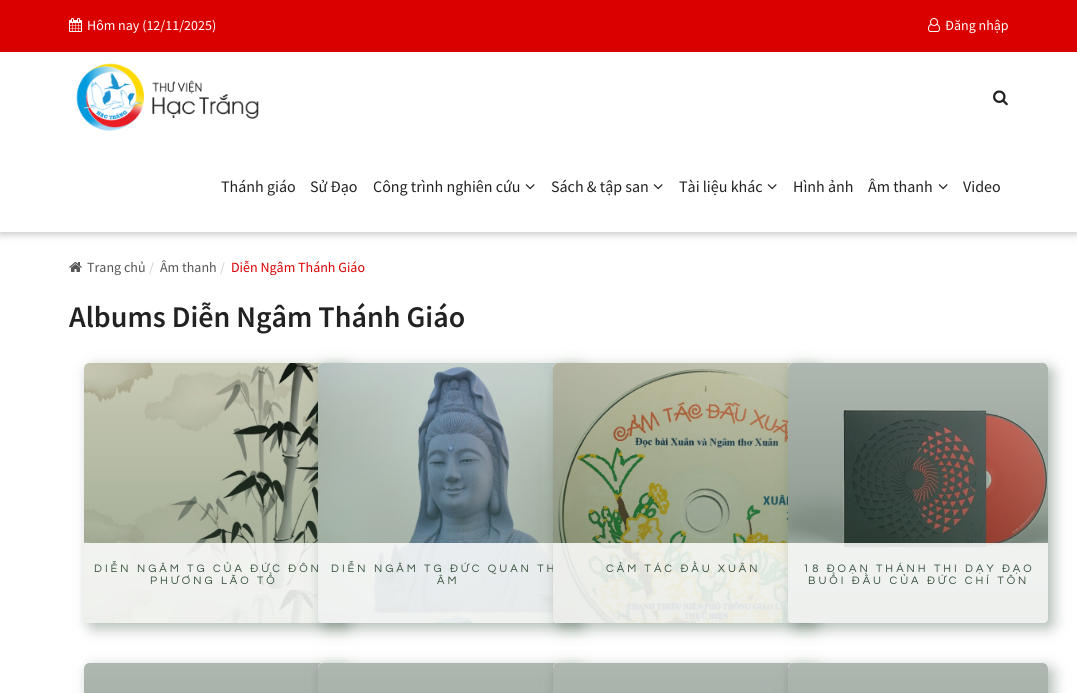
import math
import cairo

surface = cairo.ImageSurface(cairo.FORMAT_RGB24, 1077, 693)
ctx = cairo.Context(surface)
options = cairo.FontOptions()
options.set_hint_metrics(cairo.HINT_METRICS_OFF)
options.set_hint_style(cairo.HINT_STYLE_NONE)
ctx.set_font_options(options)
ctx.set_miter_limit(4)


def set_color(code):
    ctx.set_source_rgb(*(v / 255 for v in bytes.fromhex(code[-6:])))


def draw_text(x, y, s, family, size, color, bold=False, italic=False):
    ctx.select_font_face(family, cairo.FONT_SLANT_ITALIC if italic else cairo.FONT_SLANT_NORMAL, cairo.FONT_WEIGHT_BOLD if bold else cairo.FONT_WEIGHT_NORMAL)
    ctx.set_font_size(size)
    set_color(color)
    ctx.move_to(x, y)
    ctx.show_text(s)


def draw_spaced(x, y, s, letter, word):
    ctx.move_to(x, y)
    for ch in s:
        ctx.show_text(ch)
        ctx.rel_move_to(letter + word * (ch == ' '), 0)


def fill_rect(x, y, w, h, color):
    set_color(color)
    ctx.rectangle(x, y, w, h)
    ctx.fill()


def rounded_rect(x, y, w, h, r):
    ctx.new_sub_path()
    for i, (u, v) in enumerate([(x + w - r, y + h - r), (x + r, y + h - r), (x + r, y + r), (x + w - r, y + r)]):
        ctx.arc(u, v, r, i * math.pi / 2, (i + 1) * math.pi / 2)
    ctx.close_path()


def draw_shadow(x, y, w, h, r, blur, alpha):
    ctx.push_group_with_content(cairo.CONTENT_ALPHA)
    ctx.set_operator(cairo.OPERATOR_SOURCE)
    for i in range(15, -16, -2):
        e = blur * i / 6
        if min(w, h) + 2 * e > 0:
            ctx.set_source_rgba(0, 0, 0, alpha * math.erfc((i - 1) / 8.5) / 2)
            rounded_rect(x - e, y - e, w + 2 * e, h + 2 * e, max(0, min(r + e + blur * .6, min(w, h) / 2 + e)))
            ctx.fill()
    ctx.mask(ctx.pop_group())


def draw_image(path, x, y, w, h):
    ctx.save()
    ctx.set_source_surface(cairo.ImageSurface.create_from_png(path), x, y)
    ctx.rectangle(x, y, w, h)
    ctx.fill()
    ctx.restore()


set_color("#ffffff")
ctx.paint()
fill_rect(0, 0, 1077, 50, "#da0000")
draw_image("assets/img1.png", 69, 18, 13, 14)
draw_text(87, 30, "Hôm nay (12/11/2025)", "Source Sans Pro", 14, "#ffffff")
draw_image("assets/img2.png", 928, 18, 12, 14)
draw_text(945, 30, "Đăng nhập", "Source Sans Pro", 14, "#ffffff")
ctx.save()
ctx.set_fill_rule(cairo.FILL_RULE_EVEN_ODD)
ctx.new_path()
ctx.move_to(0, 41)
ctx.line_to(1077, 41)
ctx.line_to(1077, 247)
ctx.line_to(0, 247)
ctx.close_path()
ctx.move_to(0, 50)
ctx.line_to(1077, 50)
ctx.line_to(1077, 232)
ctx.line_to(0, 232)
ctx.close_path()
ctx.clip()
set_color("#000000")
draw_shadow(0, 53, 1077, 182, 0, 3.5, 0.2)
ctx.restore()
fill_rect(0, 50, 1077, 2, "#da0000")
draw_image("assets/img3.png", 76, 63, 183, 68)
draw_image("assets/img4.png", 993, 90, 15, 16)
draw_text(221, 192, "Thánh giáo", "Source Sans Pro", 16, "#222222")
draw_text(310, 192, "Sử Đạo", "Source Sans Pro", 16, "#222222")
draw_text(373, 192, "Công trình nghiên cứu", "Source Sans Pro", 16, "#222222")
draw_image("assets/img5.png", 525, 184, 10, 6)
draw_text(551, 192, "Sách & tập san", "Source Sans Pro", 16, "#222222")
draw_image("assets/img5.png", 653, 184, 10, 6)
draw_text(679, 192, "Tài liệu khác", "Source Sans Pro", 16, "#222222")
draw_image("assets/img5.png", 767, 184, 10, 6)
draw_text(793, 192, "Hình ảnh", "Source Sans Pro", 16, "#222222")
draw_text(868, 192, "Âm thanh", "Source Sans Pro", 16, "#222222")
draw_image("assets/img5.png", 938, 184, 10, 6)
draw_text(963, 192, "Video", "Source Sans Pro", 16, "#222222")
draw_image("assets/img6.png", 69, 262, 13, 10)
draw_text(87, 272, "Trang chủ", "Source Sans Pro", 14, "#555555")
draw_text(149, 272, "/", "Source Sans Pro", 14, "#cccccc")
draw_text(160, 272, "Âm thanh", "Source Sans Pro", 14, "#555555")
draw_text(220, 272, "/", "Source Sans Pro", 14, "#cccccc")
draw_text(231, 272, "Diễn Ngâm Thánh Giáo", "Source Sans Pro", 14, "#da0000")
draw_text(69, 327, "Albums Diễn Ngâm Thánh Giáo", "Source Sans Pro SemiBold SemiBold", 30, "#222222")
set_color("#364f3c")
draw_shadow(89, 368, 260, 260, 5, 7.5, 0.4)
set_color("#ffffff")
rounded_rect(84, 363, 260, 260, 5)
ctx.fill()
draw_image("assets/img7.png", 84, 363, 239, 260)
ctx.set_source_rgba(1, 1, 1, 0.85)
ctx.new_path()
ctx.move_to(84, 543)
ctx.line_to(344, 543)
ctx.line_to(344, 618)
ctx.curve_to(344, 621, 342, 623, 339, 623)
ctx.line_to(89, 623)
ctx.curve_to(86, 623, 84, 621, 84, 618)
ctx.close_path()
ctx.fill()
ctx.select_font_face("Questrial")
ctx.set_font_size(11.2)
set_color("#364f3c")
draw_spaced(94, 572, "DIỄN NGÂM TG CỦA ĐỨC ĐÔN", 3, 0)
draw_spaced(150, 584, "PHƯƠNG LÃO TỔ", 3, 0)
set_color("#364f3c")
draw_shadow(323, 368, 260, 260, 5, 7.5, 0.4)
set_color("#ffffff")
rounded_rect(318, 363, 260, 260, 5)
ctx.fill()
draw_image("assets/img8.png", 318, 363, 240, 260)
ctx.set_source_rgba(1, 1, 1, 0.85)
ctx.new_path()
ctx.move_to(318, 543)
ctx.line_to(578, 543)
ctx.line_to(578, 618)
ctx.curve_to(578, 621, 576, 623, 573, 623)
ctx.line_to(323, 623)
ctx.curve_to(320, 623, 318, 621, 318, 618)
ctx.close_path()
ctx.fill()
set_color("#364f3c")
draw_spaced(331, 572, "DIỄN NGÂM TG ĐỨC QUAN TH", 3, 0)
draw_spaced(437, 584, "ÂM", 3, 0)
set_color("#364f3c")
draw_shadow(558, 368, 260, 260, 5, 7.5, 0.4)
set_color("#ffffff")
rounded_rect(553, 363, 260, 260, 5)
ctx.fill()
draw_image("assets/img9.png", 553, 363, 240, 260)
ctx.set_source_rgba(1, 1, 1, 0.85)
ctx.new_path()
ctx.move_to(553, 543)
ctx.line_to(813, 543)
ctx.line_to(813, 618)
ctx.curve_to(813, 621, 811, 623, 808, 623)
ctx.line_to(558, 623)
ctx.curve_to(555, 623, 553, 621, 553, 618)
ctx.close_path()
ctx.fill()
set_color("#364f3c")
draw_spaced(606, 572, "CẢM TÁC ĐẦU XUÂN", 3, 0)
set_color("#364f3c")
draw_shadow(793, 368, 260, 260, 5, 7.5, 0.4)
set_color("#ffffff")
rounded_rect(788, 363, 260, 260, 5)
ctx.fill()
draw_image("assets/img10.png", 788, 363, 260, 260)
ctx.set_source_rgba(1, 1, 1, 0.85)
ctx.new_path()
ctx.move_to(788, 543)
ctx.line_to(1048, 543)
ctx.line_to(1048, 618)
ctx.curve_to(1048, 621, 1046, 623, 1043, 623)
ctx.line_to(793, 623)
ctx.curve_to(790, 623, 788, 621, 788, 618)
ctx.close_path()
ctx.fill()
set_color("#364f3c")
draw_spaced(803, 572, "18 ĐOẠN THÁNH THI DẠY ĐẠO", 3, 0)
draw_spaced(808, 584, "BUỔI ĐẦU CỦA ĐỨC CHÍ TÔN", 3, 0)
set_color("#364f3c")
draw_shadow(89, 668, 260, 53, 5, 7.5, 0.4)
set_color("#ffffff")
rounded_rect(84, 663, 260, 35, 5)
ctx.fill()
draw_image("assets/img11.png", 84, 663, 239, 30)
set_color("#364f3c")
draw_shadow(323, 668, 260, 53, 5, 7.5, 0.4)
set_color("#ffffff")
rounded_rect(318, 663, 260, 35, 5)
ctx.fill()
draw_image("assets/img12.png", 318, 663, 240, 30)
set_color("#364f3c")
draw_shadow(558, 668, 260, 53, 5, 7.5, 0.4)
set_color("#ffffff")
rounded_rect(553, 663, 260, 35, 5)
ctx.fill()
draw_image("assets/img13.png", 553, 663, 240, 30)
set_color("#364f3c")
draw_shadow(793, 668, 260, 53, 5, 7.5, 0.4)
set_color("#ffffff")
rounded_rect(788, 663, 260, 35, 5)
ctx.fill()
draw_image("assets/img14.png", 788, 663, 260, 30)
surface.write_to_png("output.png")
